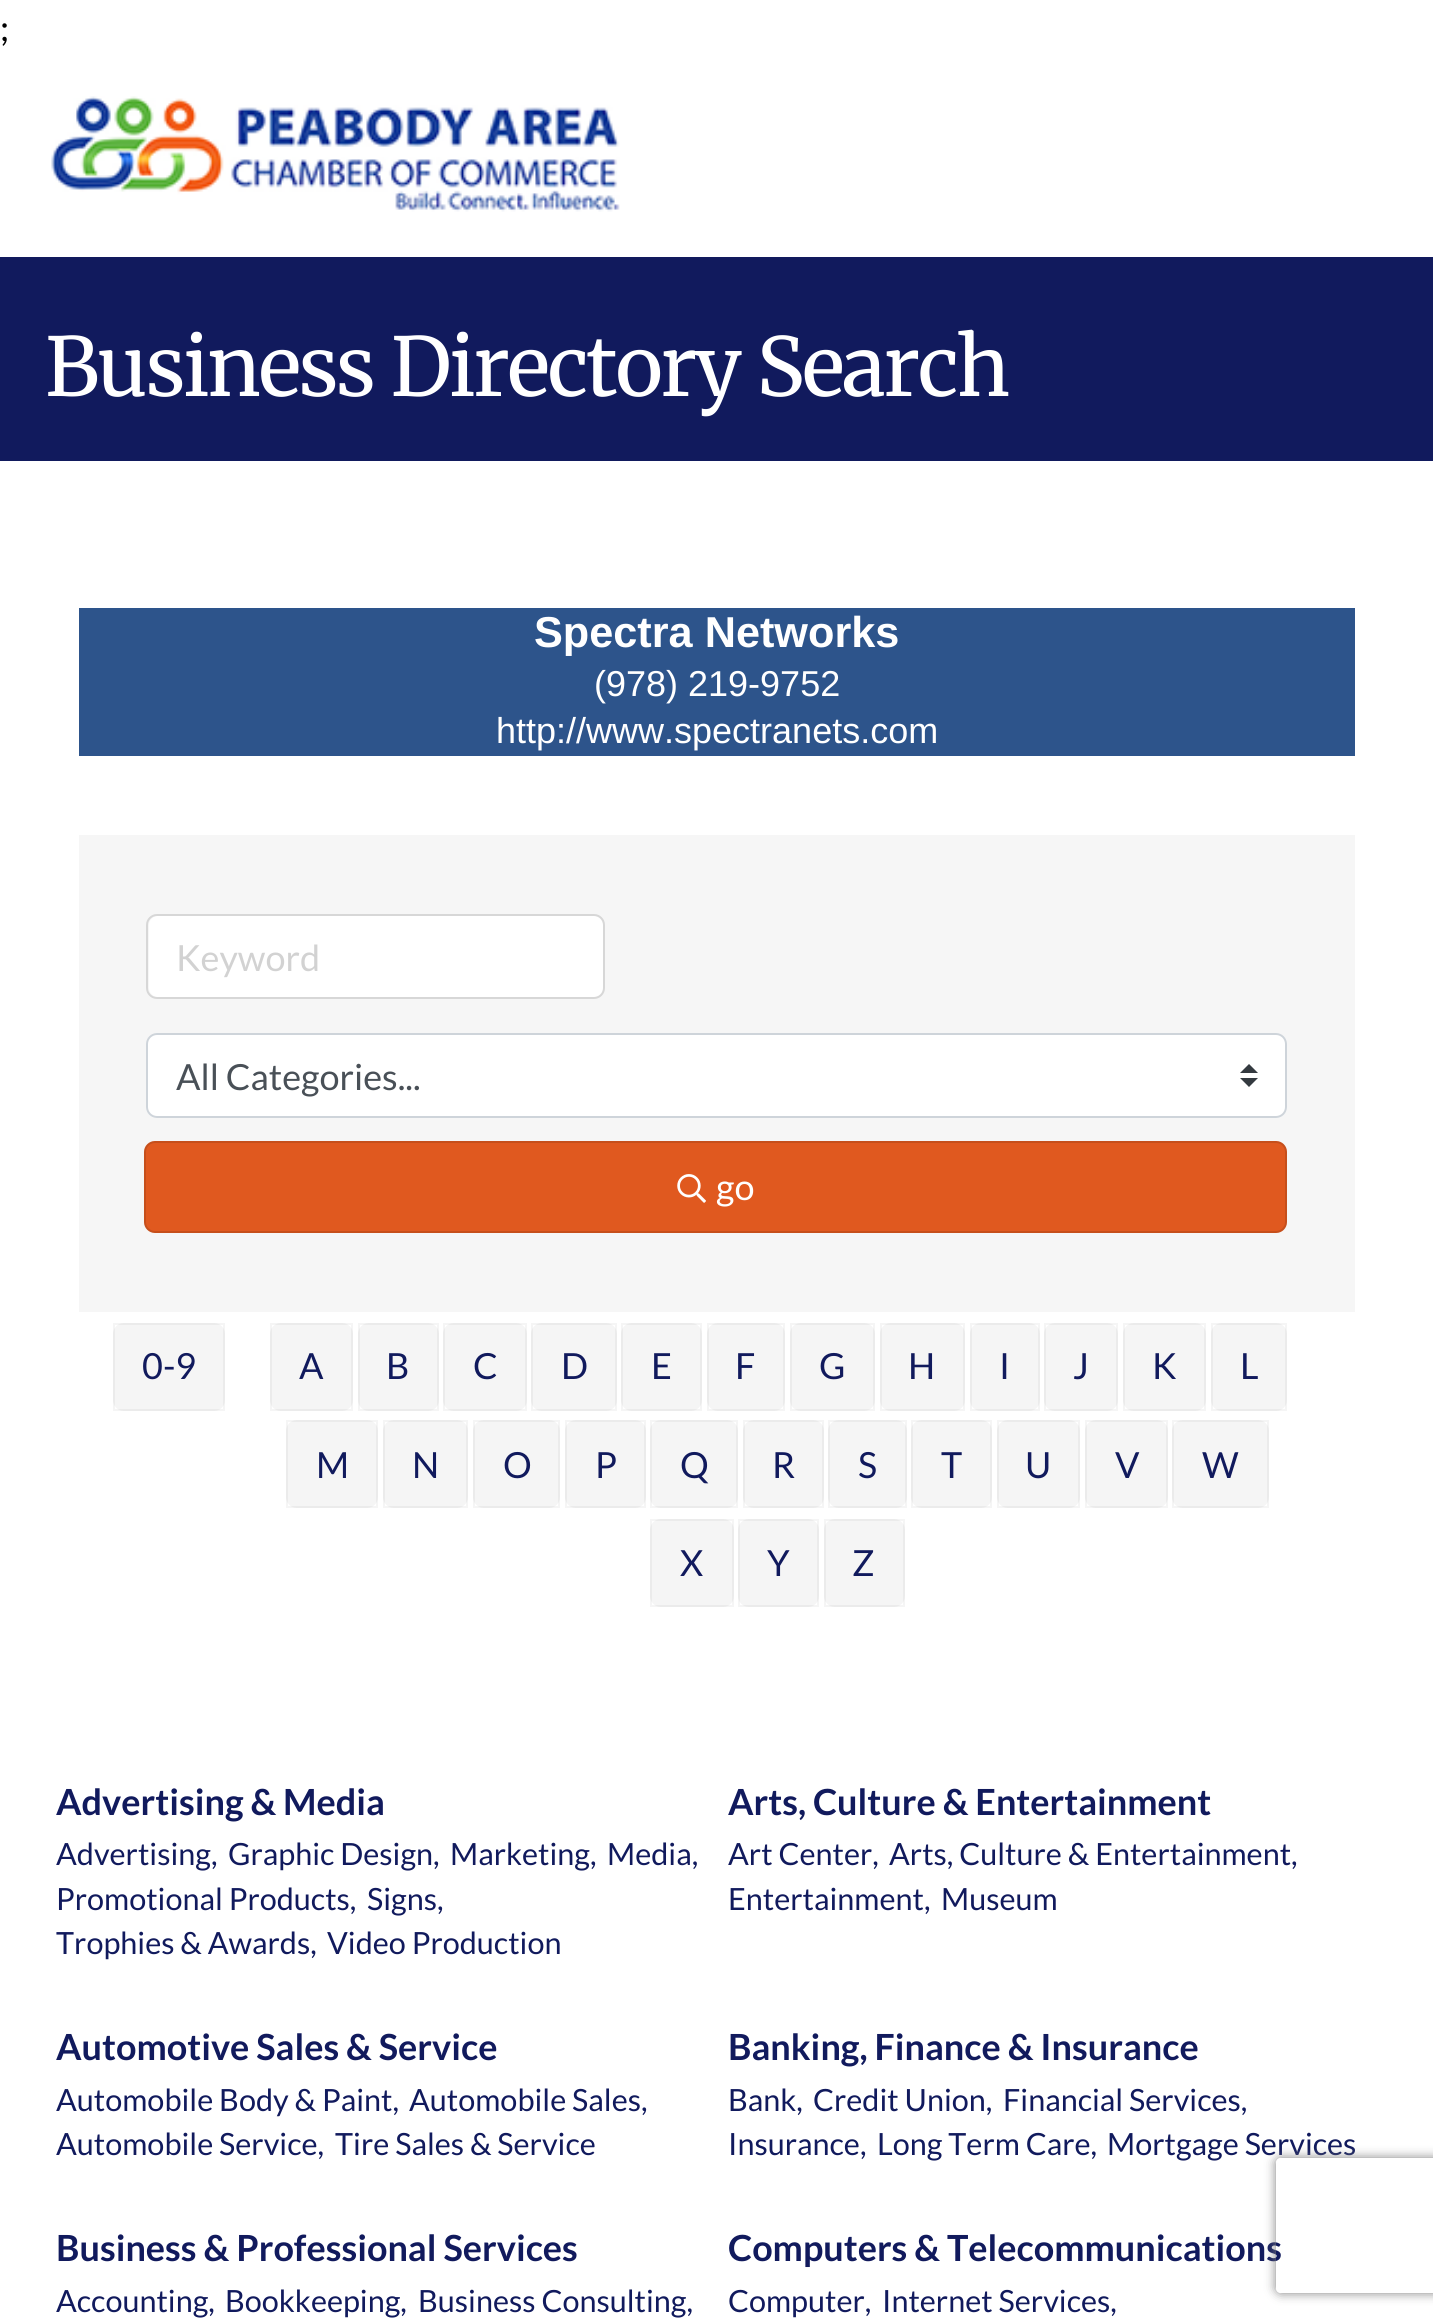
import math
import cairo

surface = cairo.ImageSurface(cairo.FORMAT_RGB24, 1433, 2324)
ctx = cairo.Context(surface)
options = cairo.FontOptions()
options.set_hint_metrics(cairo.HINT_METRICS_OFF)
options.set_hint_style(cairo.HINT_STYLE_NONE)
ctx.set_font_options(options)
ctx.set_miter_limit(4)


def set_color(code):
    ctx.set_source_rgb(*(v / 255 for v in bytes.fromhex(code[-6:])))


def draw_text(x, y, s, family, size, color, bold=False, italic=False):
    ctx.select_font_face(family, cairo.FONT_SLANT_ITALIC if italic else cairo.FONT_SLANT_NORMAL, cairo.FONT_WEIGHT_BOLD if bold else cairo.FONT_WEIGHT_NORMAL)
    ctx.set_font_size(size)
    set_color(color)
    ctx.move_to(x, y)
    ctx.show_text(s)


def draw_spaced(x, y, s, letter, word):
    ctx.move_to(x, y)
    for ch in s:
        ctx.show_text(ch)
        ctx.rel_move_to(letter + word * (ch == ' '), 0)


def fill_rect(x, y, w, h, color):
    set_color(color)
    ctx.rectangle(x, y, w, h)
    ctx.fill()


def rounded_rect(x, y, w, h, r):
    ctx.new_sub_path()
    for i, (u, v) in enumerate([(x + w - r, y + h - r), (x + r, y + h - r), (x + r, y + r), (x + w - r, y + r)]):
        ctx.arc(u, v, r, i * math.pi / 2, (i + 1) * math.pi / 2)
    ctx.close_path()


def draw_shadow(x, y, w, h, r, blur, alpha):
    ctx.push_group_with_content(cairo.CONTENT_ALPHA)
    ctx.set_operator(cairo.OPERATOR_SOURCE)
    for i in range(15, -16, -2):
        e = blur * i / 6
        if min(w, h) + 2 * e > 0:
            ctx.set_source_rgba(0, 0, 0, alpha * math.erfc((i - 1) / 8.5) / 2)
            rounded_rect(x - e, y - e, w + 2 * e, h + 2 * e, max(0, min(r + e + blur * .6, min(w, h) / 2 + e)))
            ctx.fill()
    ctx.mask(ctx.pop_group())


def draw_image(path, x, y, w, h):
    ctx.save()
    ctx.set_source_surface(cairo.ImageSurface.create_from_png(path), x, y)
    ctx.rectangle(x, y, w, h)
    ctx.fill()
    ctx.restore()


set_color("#ffffff")
ctx.paint()
draw_text(0, 41, ";", "Lato", 36, "#000000")
draw_image("assets/img1.png", 51, 96, 569, 116)
fill_rect(0, 257, 1433, 204, "#111a5d")
ctx.select_font_face("Merriweather Light")
ctx.set_font_size(81)
set_color("#ffffff")
draw_spaced(45, 396, "Business Directory Search", -2.25, 0)
fill_rect(79, 608, 1276, 148, "#2d548b")
draw_text(534, 647, "Spectra Networks", "Liberation Sans", 43.25, "#ffffff", bold=True)
draw_text(594, 696, "(978) 219-9752", "Liberation Sans", 36, "#ffffff")
draw_text(496, 743, "http://www.spectranets.com", "Liberation Sans", 36, "#ffffff")
fill_rect(79, 835, 1276, 477, "#f6f6f6")
set_color("#ffffff")
rounded_rect(149, 916, 454, 81, 9)
ctx.fill()
rounded_rect(147, 915, 457, 83, 10)
set_color("#d7d7d7")
ctx.stroke()
draw_text(176, 971, "Keyword", "Lato", 36, "#d2d2d2")
set_color("#ffffff")
rounded_rect(146, 1033, 1141, 85, 11)
ctx.fill()
set_color("#343a40")
ctx.new_path()
ctx.move_to(1249, 1064)
ctx.line_to(1240, 1073)
ctx.line_to(1258, 1073)
ctx.close_path()
ctx.move_to(1249, 1087)
ctx.line_to(1240, 1078)
ctx.line_to(1258, 1078)
ctx.close_path()
ctx.fill()
rounded_rect(147, 1034, 1139, 83, 10)
set_color("#ced4da")
ctx.stroke()
draw_text(176, 1090, "All Categories...", "Lato", 36, "#495057")
set_color("#e0591f")
rounded_rect(144, 1141, 1143, 92, 11)
ctx.fill()
rounded_rect(145, 1142, 1141, 90, 10)
ctx.set_source_rgba(0, 0, 0, 0.12)
ctx.stroke()
draw_image("assets/img2.png", 677, 1174, 29, 29)
draw_text(716, 1200, "go", "Lato", 36, "#ffffff")
set_color("#f5f5f5")
rounded_rect(113, 1323, 112, 88, 11)
ctx.fill()
ctx.rectangle(114, 1324, 110, 86)
ctx.set_source_rgba(0, 0, 0, 0.04)
ctx.stroke()
draw_text(142, 1379, "0-9", "Lato", 36, "#111a5d")
set_color("#f5f5f5")
rounded_rect(270, 1323, 83, 88, 11)
ctx.fill()
ctx.rectangle(271, 1324, 81, 86)
ctx.set_source_rgba(0, 0, 0, 0.04)
ctx.stroke()
draw_text(299, 1379, "A", "Lato", 36, "#111a5d")
set_color("#f5f5f5")
rounded_rect(358, 1323, 81, 88, 11)
ctx.fill()
ctx.rectangle(359, 1324, 79, 86)
ctx.set_source_rgba(0, 0, 0, 0.04)
ctx.stroke()
draw_text(386, 1379, "B", "Lato", 36, "#111a5d")
set_color("#f5f5f5")
rounded_rect(443, 1323, 84, 88, 11)
ctx.fill()
ctx.rectangle(444, 1324, 82, 86)
ctx.set_source_rgba(0, 0, 0, 0.04)
ctx.stroke()
draw_text(473, 1379, "C", "Lato", 36, "#111a5d")
set_color("#f5f5f5")
rounded_rect(531, 1323, 86, 88, 11)
ctx.fill()
ctx.rectangle(532, 1324, 84, 86)
ctx.set_source_rgba(0, 0, 0, 0.04)
ctx.stroke()
draw_text(561, 1379, "D", "Lato", 36, "#111a5d")
set_color("#f5f5f5")
rounded_rect(621, 1323, 81, 88, 11)
ctx.fill()
ctx.rectangle(622, 1324, 79, 86)
ctx.set_source_rgba(0, 0, 0, 0.04)
ctx.stroke()
draw_text(651, 1379, "E", "Lato", 36, "#111a5d")
set_color("#f5f5f5")
rounded_rect(707, 1323, 78, 88, 11)
ctx.fill()
ctx.rectangle(708, 1324, 76, 86)
ctx.set_source_rgba(0, 0, 0, 0.04)
ctx.stroke()
draw_text(735, 1379, "F", "Lato", 36, "#111a5d")
set_color("#f5f5f5")
rounded_rect(790, 1323, 85, 88, 11)
ctx.fill()
ctx.rectangle(791, 1324, 83, 86)
ctx.set_source_rgba(0, 0, 0, 0.04)
ctx.stroke()
draw_text(819, 1379, "G", "Lato", 36, "#111a5d")
set_color("#f5f5f5")
rounded_rect(880, 1323, 85, 88, 11)
ctx.fill()
ctx.rectangle(881, 1324, 83, 86)
ctx.set_source_rgba(0, 0, 0, 0.04)
ctx.stroke()
draw_text(908, 1379, "H", "Lato", 36, "#111a5d")
set_color("#f5f5f5")
rounded_rect(970, 1323, 70, 88, 11)
ctx.fill()
ctx.rectangle(971, 1324, 68, 86)
ctx.set_source_rgba(0, 0, 0, 0.04)
ctx.stroke()
draw_text(999, 1379, "I", "Lato", 36, "#111a5d")
set_color("#f5f5f5")
rounded_rect(1044, 1323, 74, 88, 11)
ctx.fill()
ctx.rectangle(1045, 1324, 72, 86)
ctx.set_source_rgba(0, 0, 0, 0.04)
ctx.stroke()
draw_text(1073, 1379, "J", "Lato", 36, "#111a5d")
set_color("#f5f5f5")
rounded_rect(1123, 1323, 83, 88, 11)
ctx.fill()
ctx.rectangle(1124, 1324, 81, 86)
ctx.set_source_rgba(0, 0, 0, 0.04)
ctx.stroke()
draw_text(1152, 1379, "K", "Lato", 36, "#111a5d")
set_color("#f5f5f5")
rounded_rect(1211, 1323, 76, 88, 11)
ctx.fill()
ctx.rectangle(1212, 1324, 74, 86)
ctx.set_source_rgba(0, 0, 0, 0.04)
ctx.stroke()
draw_text(1240, 1379, "L", "Lato", 36, "#111a5d")
set_color("#f5f5f5")
rounded_rect(286, 1420, 92, 88, 11)
ctx.fill()
ctx.rectangle(287, 1421, 90, 86)
ctx.set_source_rgba(0, 0, 0, 0.04)
ctx.stroke()
draw_text(316, 1478, "M", "Lato", 36, "#111a5d")
set_color("#f5f5f5")
rounded_rect(383, 1420, 85, 88, 11)
ctx.fill()
ctx.rectangle(384, 1421, 83, 86)
ctx.set_source_rgba(0, 0, 0, 0.04)
ctx.stroke()
draw_text(412, 1478, "N", "Lato", 36, "#111a5d")
set_color("#f5f5f5")
rounded_rect(473, 1420, 87, 88, 11)
ctx.fill()
ctx.rectangle(474, 1421, 85, 86)
ctx.set_source_rgba(0, 0, 0, 0.04)
ctx.stroke()
draw_text(503, 1478, "O", "Lato", 36, "#111a5d")
set_color("#f5f5f5")
rounded_rect(565, 1420, 81, 88, 11)
ctx.fill()
ctx.rectangle(566, 1421, 79, 86)
ctx.set_source_rgba(0, 0, 0, 0.04)
ctx.stroke()
draw_text(595, 1478, "P", "Lato", 36, "#111a5d")
set_color("#f5f5f5")
rounded_rect(650, 1420, 88, 88, 11)
ctx.fill()
ctx.rectangle(651, 1421, 86, 86)
ctx.set_source_rgba(0, 0, 0, 0.04)
ctx.stroke()
draw_text(680, 1478, "Q", "Lato", 36, "#111a5d")
set_color("#f5f5f5")
rounded_rect(743, 1420, 81, 88, 11)
ctx.fill()
ctx.rectangle(744, 1421, 79, 86)
ctx.set_source_rgba(0, 0, 0, 0.04)
ctx.stroke()
draw_text(772, 1478, "R", "Lato", 36, "#111a5d")
set_color("#f5f5f5")
rounded_rect(828, 1420, 79, 88, 11)
ctx.fill()
ctx.rectangle(829, 1421, 77, 86)
ctx.set_source_rgba(0, 0, 0, 0.04)
ctx.stroke()
draw_text(858, 1478, "S", "Lato", 36, "#111a5d")
set_color("#f5f5f5")
rounded_rect(911, 1420, 81, 88, 11)
ctx.fill()
ctx.rectangle(912, 1421, 79, 86)
ctx.set_source_rgba(0, 0, 0, 0.04)
ctx.stroke()
draw_text(941, 1478, "T", "Lato", 36, "#111a5d")
set_color("#f5f5f5")
rounded_rect(997, 1420, 83, 88, 11)
ctx.fill()
ctx.rectangle(998, 1421, 81, 86)
ctx.set_source_rgba(0, 0, 0, 0.04)
ctx.stroke()
draw_text(1025, 1478, "U", "Lato", 36, "#111a5d")
set_color("#f5f5f5")
rounded_rect(1085, 1420, 83, 88, 11)
ctx.fill()
ctx.rectangle(1086, 1421, 81, 86)
ctx.set_source_rgba(0, 0, 0, 0.04)
ctx.stroke()
draw_text(1115, 1478, "V", "Lato", 36, "#111a5d")
set_color("#f5f5f5")
rounded_rect(1172, 1420, 97, 88, 11)
ctx.fill()
ctx.rectangle(1173, 1421, 95, 86)
ctx.set_source_rgba(0, 0, 0, 0.04)
ctx.stroke()
draw_text(1202, 1478, "W", "Lato", 36, "#111a5d")
set_color("#f5f5f5")
rounded_rect(650, 1519, 84, 88, 11)
ctx.fill()
ctx.rectangle(651, 1520, 82, 86)
ctx.set_source_rgba(0, 0, 0, 0.04)
ctx.stroke()
draw_text(680, 1576, "X", "Lato", 36, "#111a5d")
set_color("#f5f5f5")
rounded_rect(738, 1519, 81, 88, 11)
ctx.fill()
ctx.rectangle(739, 1520, 79, 86)
ctx.set_source_rgba(0, 0, 0, 0.04)
ctx.stroke()
draw_text(767, 1576, "Y", "Lato", 36, "#111a5d")
set_color("#f5f5f5")
rounded_rect(824, 1519, 81, 88, 11)
ctx.fill()
ctx.rectangle(825, 1520, 79, 86)
ctx.set_source_rgba(0, 0, 0, 0.04)
ctx.stroke()
draw_text(852, 1576, "Z", "Lato", 36, "#111a5d")
draw_text(56, 1815, "Advertising & Media", "Lato", 36, "#111a5d", bold=True)
draw_text(56, 1865, "Advertising,", "Lato", 30.6, "#111a5d")
draw_text(228, 1865, "Graphic Design,", "Lato", 30.6, "#111a5d")
draw_text(450, 1865, "Marketing,", "Lato", 30.6, "#111a5d")
draw_text(607, 1865, "Media,", "Lato", 30.6, "#111a5d")
draw_text(56, 1910, "Promotional Products,", "Lato", 30.6, "#111a5d")
draw_text(367, 1910, "Signs,", "Lato", 30.6, "#111a5d")
draw_text(56, 1954, "Trophies & Awards,", "Lato", 30.6, "#111a5d")
draw_text(327, 1954, "Video Production", "Lato", 30.6, "#111a5d")
draw_text(728, 1815, "Arts, Culture & Entertainment", "Lato", 36, "#111a5d", bold=True)
draw_text(728, 1865, "Art Center,", "Lato", 30.6, "#111a5d")
draw_text(889, 1865, "Arts, Culture & Entertainment,", "Lato", 30.6, "#111a5d")
draw_text(728, 1910, "Entertainment,", "Lato", 30.6, "#111a5d")
draw_text(941, 1910, "Museum", "Lato", 30.6, "#111a5d")
draw_text(56, 2060, "Automotive Sales & Service", "Lato", 36, "#111a5d", bold=True)
draw_text(56, 2111, "Automobile Body & Paint,", "Lato", 30.6, "#111a5d")
draw_text(409, 2111, "Automobile Sales,", "Lato", 30.6, "#111a5d")
draw_text(56, 2155, "Automobile Service,", "Lato", 30.6, "#111a5d")
draw_text(335, 2155, "Tire Sales & Service", "Lato", 30.6, "#111a5d")
draw_text(728, 2060, "Banking, Finance & Insurance", "Lato", 36, "#111a5d", bold=True)
draw_text(728, 2111, "Bank,", "Lato", 30.6, "#111a5d")
draw_text(813, 2111, "Credit Union,", "Lato", 30.6, "#111a5d")
draw_text(1003, 2111, "Financial Services,", "Lato", 30.6, "#111a5d")
draw_text(728, 2155, "Insurance,", "Lato", 30.6, "#111a5d")
draw_text(877, 2155, "Long Term Care,", "Lato", 30.6, "#111a5d")
draw_text(1107, 2155, "Mortgage Services", "Lato", 30.6, "#111a5d")
draw_text(56, 2261, "Business & Professional Services", "Lato", 36, "#111a5d", bold=True)
draw_text(56, 2312, "Accounting,", "Lato", 30.6, "#111a5d")
draw_text(225, 2312, "Bookkeeping,", "Lato", 30.6, "#111a5d")
draw_text(418, 2312, "Business Consulting,", "Lato", 30.6, "#111a5d")
draw_text(728, 2261, "Computers & Telecommunications", "Lato", 36, "#111a5d", bold=True)
draw_text(728, 2312, "Computer,", "Lato", 30.6, "#111a5d")
draw_text(882, 2312, "Internet Services,", "Lato", 30.6, "#111a5d")
ctx.save()
ctx.set_fill_rule(cairo.FILL_RULE_EVEN_ODD)
ctx.new_path()
ctx.move_to(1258, 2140)
ctx.line_to(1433, 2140)
ctx.line_to(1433, 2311)
ctx.line_to(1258, 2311)
ctx.close_path()
ctx.move_to(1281, 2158)
ctx.line_to(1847, 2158)
ctx.curve_to(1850, 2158, 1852, 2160, 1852, 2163)
ctx.line_to(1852, 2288)
ctx.curve_to(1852, 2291, 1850, 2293, 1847, 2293)
ctx.line_to(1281, 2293)
ctx.curve_to(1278, 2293, 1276, 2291, 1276, 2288)
ctx.line_to(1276, 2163)
ctx.curve_to(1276, 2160, 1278, 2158, 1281, 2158)
ctx.close_path()
ctx.clip()
set_color("#808080")
draw_shadow(1276, 2158, 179, 135, 5, 5.5, 1)
ctx.restore()
surface.write_to_png("output.png")
